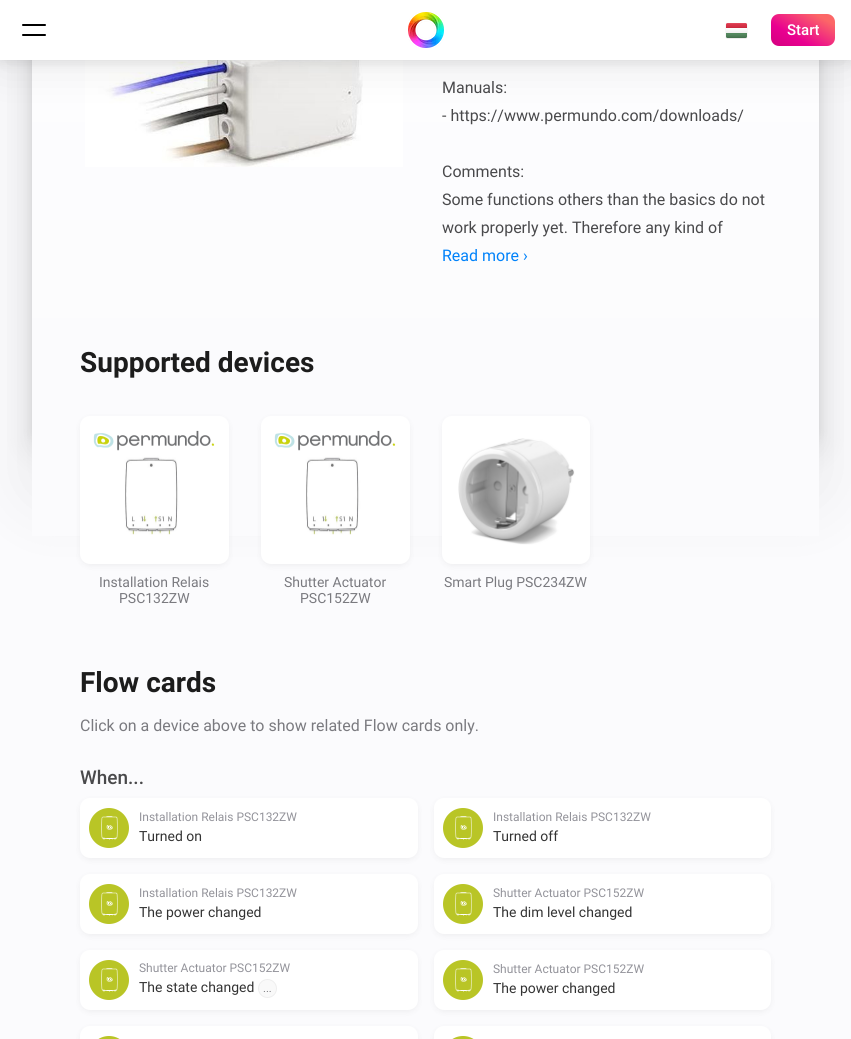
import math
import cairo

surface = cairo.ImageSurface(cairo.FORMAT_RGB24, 851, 1039)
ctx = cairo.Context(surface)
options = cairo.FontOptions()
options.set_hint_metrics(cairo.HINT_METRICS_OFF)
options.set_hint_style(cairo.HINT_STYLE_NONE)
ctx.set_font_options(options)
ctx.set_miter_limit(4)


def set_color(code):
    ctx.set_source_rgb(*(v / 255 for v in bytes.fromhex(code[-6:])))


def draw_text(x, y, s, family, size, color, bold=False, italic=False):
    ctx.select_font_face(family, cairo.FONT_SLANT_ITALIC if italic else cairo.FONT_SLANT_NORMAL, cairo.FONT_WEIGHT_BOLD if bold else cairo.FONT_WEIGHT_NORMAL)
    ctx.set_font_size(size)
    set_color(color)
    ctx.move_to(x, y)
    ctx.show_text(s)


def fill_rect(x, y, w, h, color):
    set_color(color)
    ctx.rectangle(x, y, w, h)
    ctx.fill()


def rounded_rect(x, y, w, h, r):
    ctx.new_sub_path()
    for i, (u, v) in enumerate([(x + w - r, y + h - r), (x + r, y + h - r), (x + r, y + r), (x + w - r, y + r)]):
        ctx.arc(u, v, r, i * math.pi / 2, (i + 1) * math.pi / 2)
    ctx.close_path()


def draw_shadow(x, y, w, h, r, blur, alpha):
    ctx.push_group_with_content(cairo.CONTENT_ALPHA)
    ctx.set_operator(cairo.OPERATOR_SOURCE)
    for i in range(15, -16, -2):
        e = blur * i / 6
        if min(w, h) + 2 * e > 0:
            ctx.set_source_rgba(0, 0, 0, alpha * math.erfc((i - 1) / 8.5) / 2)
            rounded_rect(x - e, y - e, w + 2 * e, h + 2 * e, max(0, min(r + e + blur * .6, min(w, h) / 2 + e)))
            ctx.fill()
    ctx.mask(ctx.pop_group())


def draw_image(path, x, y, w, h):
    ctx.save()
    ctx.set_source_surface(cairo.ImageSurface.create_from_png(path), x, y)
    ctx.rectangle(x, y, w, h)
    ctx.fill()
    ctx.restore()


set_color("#fbfbfd")
ctx.paint()
set_color("#000000")
draw_shadow(22, -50, 807, 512, 20, 10, 0.05)
draw_shadow(12, -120, 827, 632, 30, 30, 0.05)
draw_shadow(32, -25, 787, 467, 10, 5, 0.1)
gradient = cairo.LinearGradient(425, -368, 426, 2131)
gradient.add_color_stop_rgba(0, 1, 1, 1, 1)
gradient.add_color_stop_rgba(0.32, 0.984, 0.984, 0.992, 1)
ctx.set_source(gradient)
ctx.rectangle(32, 60, 787, 476)
ctx.fill()
draw_image("assets/img3.png", 85, 60, 318, 107)
set_color("#000000")
draw_shadow(0, 2, 851, 60, 0, 6, 0.1)
draw_shadow(0, 10, 851, 60, 0, 22, 0.07)
fill_rect(0, 0, 851, 60, "#ffffff")
set_color("#000000")
rounded_rect(22, 24, 24, 2, 1)
ctx.fill()
rounded_rect(22, 34, 24, 2, 1)
ctx.fill()
draw_image("assets/img1.png", 408, 12, 36, 36)
draw_image("assets/img2.png", 725, 23, 23, 16)
gradient = cairo.LinearGradient(791, 70, 837, -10)
gradient.add_color_stop_rgba(0, 0.78, 0, 0.463, 1)
gradient.add_color_stop_rgba(0.33, 0.914, 0, 0.565, 1)
gradient.add_color_stop_rgba(0.66, 0.988, 0.404, 0.404, 1)
gradient.add_color_stop_rgba(1, 0.988, 0.404, 0.404, 1)
ctx.set_source(gradient)
rounded_rect(771, 14, 64, 32, 8)
ctx.fill()
draw_text(787, 35, "Start", "Roboto Medium", 15, "#ffffff")
draw_text(442, 93, "Manuals:", "Roboto", 16, "#49494b")
draw_text(442, 121, "- https://www.permundo.com/downloads/", "Roboto", 16, "#49494b")
draw_text(442, 177, "Comments:", "Roboto", 16, "#49494b")
draw_text(442, 205, "Some functions others than the basics do not", "Roboto", 16, "#49494b")
draw_text(442, 233, "work properly yet. Therefore any kind of", "Roboto", 16, "#49494b")
draw_text(442, 261, "Read more ›", "Roboto", 16, "#0082fa")
draw_text(80, 372, "Supported devices", "Roboto", 28, "#1c1c1c", bold=True)
set_color("#000000")
draw_shadow(80, 418, 149, 148, 10, 3, 0.05)
set_color("#ffffff")
rounded_rect(80, 416, 149, 148, 10)
ctx.fill()
draw_image("assets/img4.png", 93, 430, 122, 105)
draw_text(99, 587, "Installation Relais", "Roboto", 14, "#7a7a7f")
draw_text(119, 603, "PSC132ZW", "Roboto", 14, "#7a7a7f")
set_color("#000000")
draw_shadow(261, 418, 149, 148, 10, 3, 0.05)
set_color("#ffffff")
rounded_rect(261, 416, 149, 148, 10)
ctx.fill()
draw_image("assets/img4.png", 274, 430, 122, 105)
draw_text(284, 587, "Shutter Actuator", "Roboto", 14, "#7a7a7f")
draw_text(300, 603, "PSC152ZW", "Roboto", 14, "#7a7a7f")
set_color("#000000")
draw_shadow(442, 418, 148, 148, 10, 3, 0.05)
set_color("#ffffff")
rounded_rect(442, 416, 148, 148, 10)
ctx.fill()
draw_image("assets/img5.png", 458, 438, 117, 107)
draw_text(444, 587, "Smart Plug PSC234ZW", "Roboto", 14, "#7a7a7f")
draw_text(80, 692, "Flow cards", "Roboto", 28, "#1c1c1c", bold=True)
draw_text(80, 731, "Click on a device above to show related Flow cards only.", "Roboto", 16, "#7a7a7f")
draw_text(80, 784, "When...", "Roboto Medium", 19, "#49494b")
set_color("#000000")
draw_shadow(80, 800, 338, 60, 10, 3, 0.05)
set_color("#ffffff")
rounded_rect(80, 798, 338, 60, 10)
ctx.fill()
set_color("#b9c526")
ctx.arc(109, 828, 20, 0, 2 * math.pi)
ctx.fill()
draw_image("assets/img6.png", 101, 816, 17, 24)
draw_text(139, 821, "Installation Relais PSC132ZW", "Roboto", 12, "#93939a")
draw_text(139, 841, "Turned on", "Roboto", 14, "#333333")
set_color("#000000")
draw_shadow(434, 800, 337, 60, 10, 3, 0.05)
set_color("#ffffff")
rounded_rect(434, 798, 337, 60, 10)
ctx.fill()
set_color("#b9c526")
ctx.arc(463, 828, 20, 0, 2 * math.pi)
ctx.fill()
draw_image("assets/img6.png", 455, 816, 17, 24)
draw_text(493, 821, "Installation Relais PSC132ZW", "Roboto", 12, "#93939a")
draw_text(493, 841, "Turned off", "Roboto", 14, "#333333")
set_color("#000000")
draw_shadow(80, 876, 338, 60, 10, 3, 0.05)
set_color("#ffffff")
rounded_rect(80, 874, 338, 60, 10)
ctx.fill()
set_color("#b9c526")
ctx.arc(109, 904, 20, 0, 2 * math.pi)
ctx.fill()
draw_image("assets/img6.png", 101, 892, 17, 24)
draw_text(139, 897, "Installation Relais PSC132ZW", "Roboto", 12, "#93939a")
draw_text(139, 917, "The power changed", "Roboto", 14, "#333333")
set_color("#000000")
draw_shadow(434, 876, 337, 60, 10, 3, 0.05)
set_color("#ffffff")
rounded_rect(434, 874, 337, 60, 10)
ctx.fill()
set_color("#b9c526")
ctx.arc(463, 904, 20, 0, 2 * math.pi)
ctx.fill()
draw_image("assets/img6.png", 455, 892, 17, 24)
draw_text(493, 897, "Shutter Actuator PSC152ZW", "Roboto", 12, "#93939a")
draw_text(493, 917, "The dim level changed", "Roboto", 14, "#333333")
set_color("#000000")
draw_shadow(80, 952, 338, 60, 10, 3, 0.05)
set_color("#ffffff")
rounded_rect(80, 950, 338, 60, 10)
ctx.fill()
set_color("#b9c526")
ctx.arc(109, 980, 20, 0, 2 * math.pi)
ctx.fill()
draw_image("assets/img6.png", 101, 968, 17, 24)
draw_text(139, 972, "Shutter Actuator PSC152ZW", "Roboto", 12, "#93939a")
draw_text(139, 992, "The state changed", "Roboto", 14, "#333333")
set_color("#f9f9f9")
ctx.new_path()
ctx.arc(267.5, 988.5, 9, 0, 2 * math.pi)
ctx.fill_preserve()
set_color("#eeeeee")
ctx.set_line_width(1)
ctx.stroke()
draw_text(263, 992, "...", "Roboto", 11, "#7a7a7f")
set_color("#000000")
draw_shadow(434, 952, 337, 60, 10, 3, 0.05)
set_color("#ffffff")
rounded_rect(434, 950, 337, 60, 10)
ctx.fill()
set_color("#b9c526")
ctx.arc(463, 980, 20, 0, 2 * math.pi)
ctx.fill()
draw_image("assets/img6.png", 455, 968, 17, 24)
draw_text(493, 973, "Shutter Actuator PSC152ZW", "Roboto", 12, "#93939a")
draw_text(493, 993, "The power changed", "Roboto", 14, "#333333")
set_color("#000000")
draw_shadow(80, 1028, 338, 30, 10, 3, 0.05)
set_color("#ffffff")
rounded_rect(80, 1026, 338, 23, 10)
ctx.fill()
set_color("#b9c526")
rounded_rect(89, 1036, 40, 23, 20)
ctx.fill()
set_color("#000000")
draw_shadow(434, 1028, 337, 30, 10, 3, 0.05)
set_color("#ffffff")
rounded_rect(434, 1026, 337, 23, 10)
ctx.fill()
set_color("#b9c526")
rounded_rect(443, 1036, 40, 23, 20)
ctx.fill()
surface.write_to_png("output.png")
